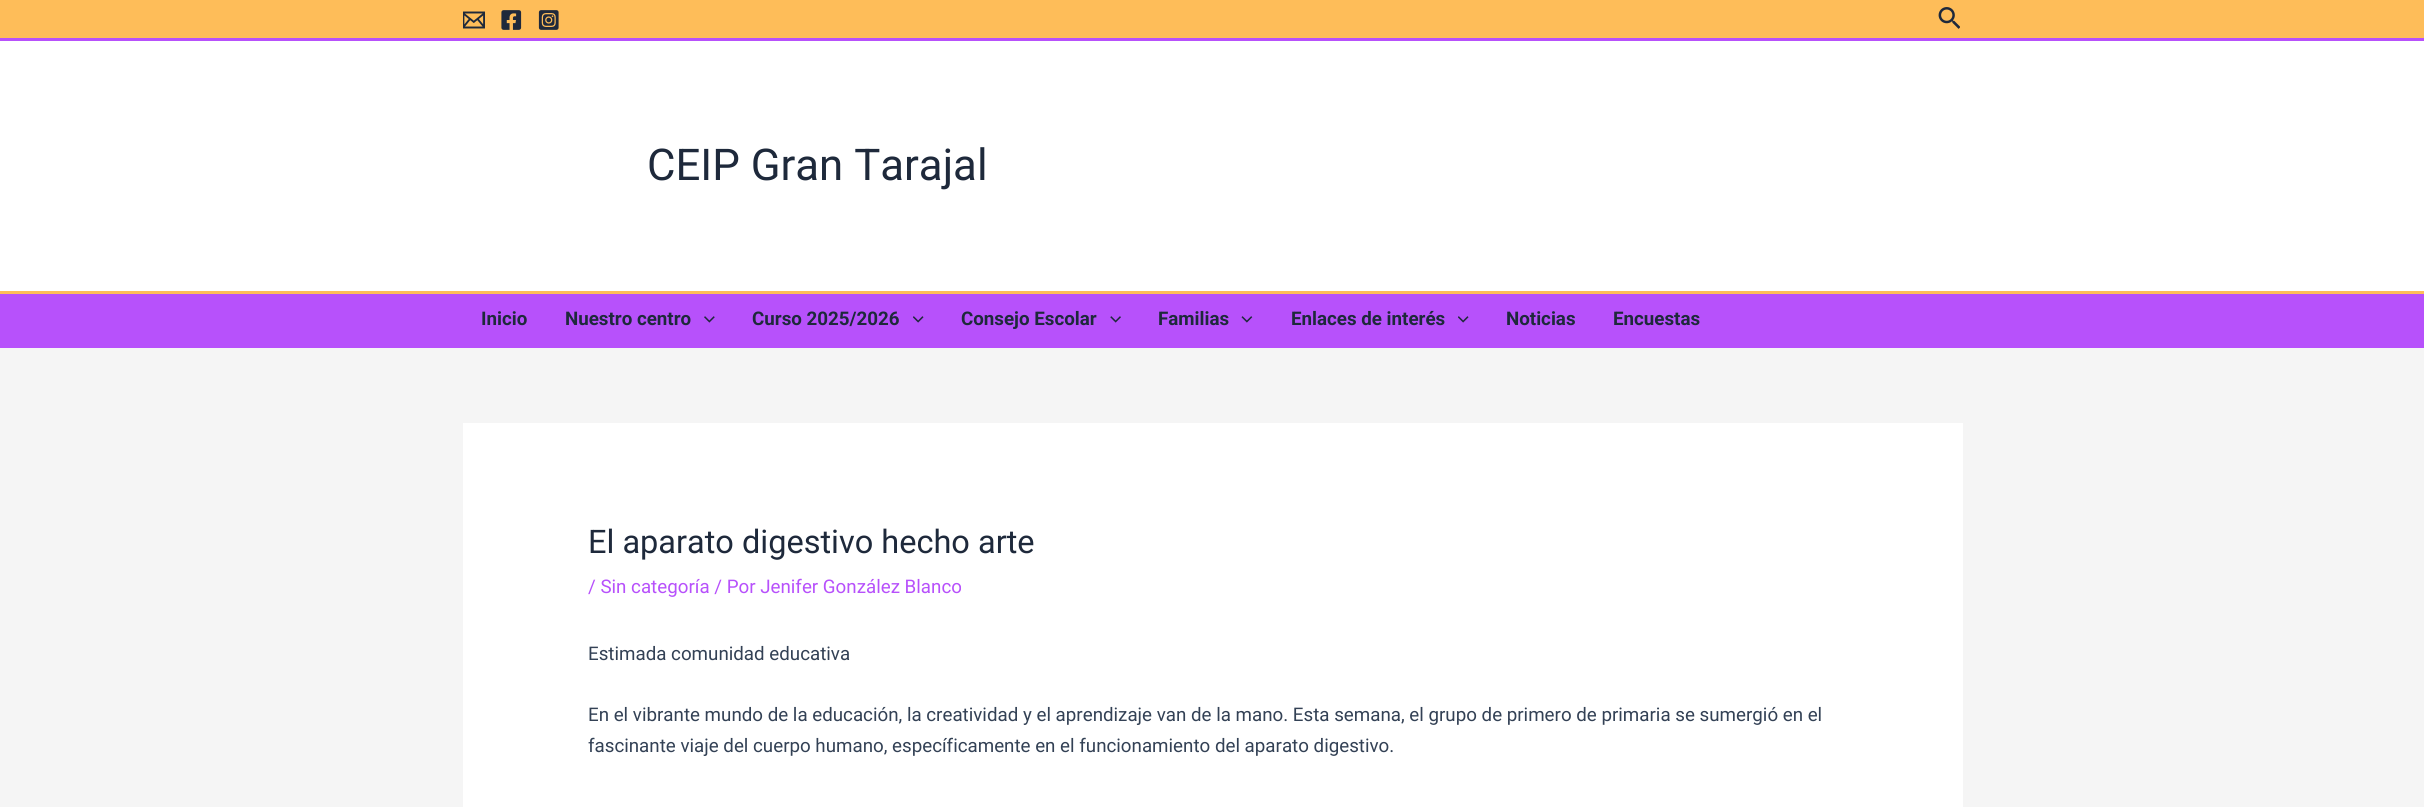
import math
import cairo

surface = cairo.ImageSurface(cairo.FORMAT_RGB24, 2424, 807)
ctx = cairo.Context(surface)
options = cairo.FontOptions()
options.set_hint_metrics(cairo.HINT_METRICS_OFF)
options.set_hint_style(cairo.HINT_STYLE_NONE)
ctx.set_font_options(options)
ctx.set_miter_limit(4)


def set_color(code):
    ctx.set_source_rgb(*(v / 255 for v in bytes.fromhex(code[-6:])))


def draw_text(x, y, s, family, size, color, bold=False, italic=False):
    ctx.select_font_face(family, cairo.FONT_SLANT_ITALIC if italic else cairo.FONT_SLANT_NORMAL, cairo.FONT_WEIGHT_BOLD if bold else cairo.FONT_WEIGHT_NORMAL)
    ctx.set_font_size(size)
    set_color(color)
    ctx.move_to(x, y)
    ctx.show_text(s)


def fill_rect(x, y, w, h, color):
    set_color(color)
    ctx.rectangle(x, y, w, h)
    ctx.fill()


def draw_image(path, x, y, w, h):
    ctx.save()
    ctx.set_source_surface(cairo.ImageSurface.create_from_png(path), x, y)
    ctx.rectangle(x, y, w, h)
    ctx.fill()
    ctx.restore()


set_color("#f5f5f5")
ctx.paint()
fill_rect(0, 0, 2424, 38, "#febd59")
fill_rect(0, 38, 2424, 3, "#b751fb")
draw_image("assets/img1.png", 463, 11, 22, 18)
draw_image("assets/img2.png", 501, 10, 21, 20)
draw_image("assets/img3.png", 538, 10, 21, 20)
draw_image("assets/img4.png", 1938, 7, 22, 22)
fill_rect(0, 41, 2424, 250, "#ffffff")
fill_rect(0, 291, 2424, 3, "#febd59")
draw_text(647, 180, "CEIP Gran Tarajal", "Roboto", 43.75, "#1e293b")
fill_rect(0, 294, 2424, 54, "#b751fb")
draw_text(481, 325, "Inicio", "Roboto", 18.75, "#1e293b", bold=True)
draw_text(565, 325, "Nuestro centro", "Roboto", 18.75, "#1e293b", bold=True)
draw_image("assets/img5.png", 704, 316, 11, 7)
draw_text(752, 325, "Curso 2025/2026", "Roboto", 18.75, "#1e293b", bold=True)
draw_image("assets/img6.png", 913, 316, 11, 7)
draw_text(961, 325, "Consejo Escolar", "Roboto", 18.75, "#1e293b", bold=True)
draw_image("assets/img7.png", 1110, 316, 11, 7)
draw_text(1158, 325, "Familias", "Roboto", 18.75, "#1e293b", bold=True)
draw_image("assets/img8.png", 1241, 316, 12, 7)
draw_text(1291, 325, "Enlaces de interés", "Roboto", 18.75, "#1e293b", bold=True)
draw_image("assets/img6.png", 1458, 316, 11, 7)
draw_text(1506, 325, "Noticias", "Roboto", 18.75, "#1e293b", bold=True)
draw_text(1613, 325, "Encuestas", "Roboto", 18.75, "#1e293b", bold=True)
fill_rect(463, 423, 1500, 384, "#ffffff")
draw_text(588, 553, "El aparato digestivo hecho arte", "Roboto", 32.5, "#1e293b")
draw_text(588, 593, "/ Sin categoría / Por Jenifer González Blanco", "Roboto", 18.75, "#b751fb")
draw_text(588, 660, "Estimada comunidad educativa", "Roboto", 18.75, "#334155")
draw_text(588, 721, "En el vibrante mundo de la educación, la creatividad y el aprendizaje van de la mano. Esta semana, el grupo de primero de primaria se sumergió en el", "Roboto", 18.75, "#334155")
draw_text(588, 752, "fascinante viaje del cuerpo humano, específicamente en el funcionamiento del aparato digestivo.", "Roboto", 18.75, "#334155")
surface.write_to_png("output.png")
